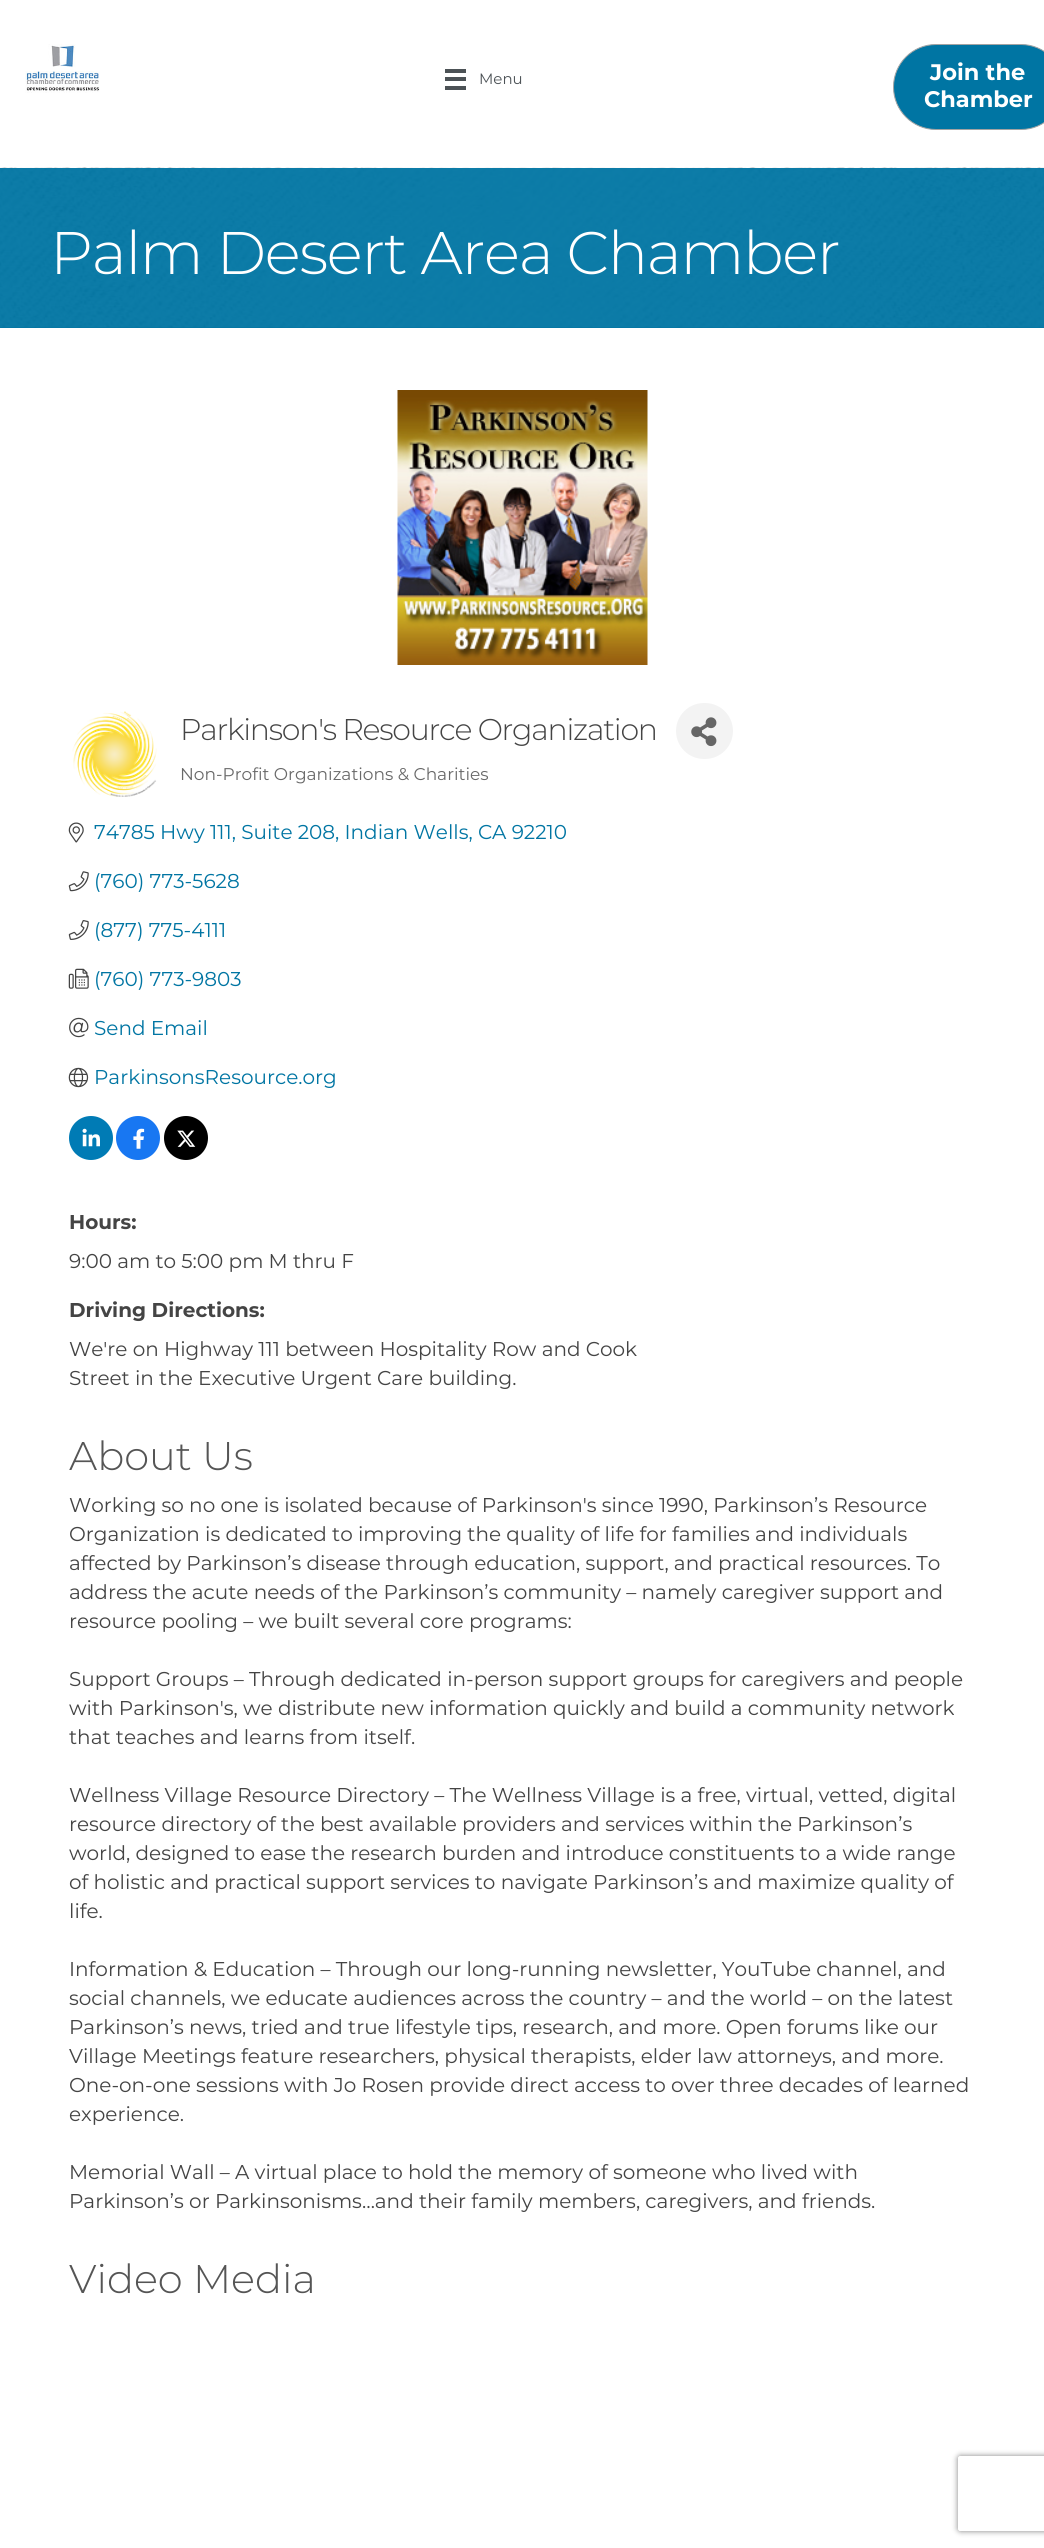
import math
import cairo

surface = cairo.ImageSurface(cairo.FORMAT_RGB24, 1044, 2548)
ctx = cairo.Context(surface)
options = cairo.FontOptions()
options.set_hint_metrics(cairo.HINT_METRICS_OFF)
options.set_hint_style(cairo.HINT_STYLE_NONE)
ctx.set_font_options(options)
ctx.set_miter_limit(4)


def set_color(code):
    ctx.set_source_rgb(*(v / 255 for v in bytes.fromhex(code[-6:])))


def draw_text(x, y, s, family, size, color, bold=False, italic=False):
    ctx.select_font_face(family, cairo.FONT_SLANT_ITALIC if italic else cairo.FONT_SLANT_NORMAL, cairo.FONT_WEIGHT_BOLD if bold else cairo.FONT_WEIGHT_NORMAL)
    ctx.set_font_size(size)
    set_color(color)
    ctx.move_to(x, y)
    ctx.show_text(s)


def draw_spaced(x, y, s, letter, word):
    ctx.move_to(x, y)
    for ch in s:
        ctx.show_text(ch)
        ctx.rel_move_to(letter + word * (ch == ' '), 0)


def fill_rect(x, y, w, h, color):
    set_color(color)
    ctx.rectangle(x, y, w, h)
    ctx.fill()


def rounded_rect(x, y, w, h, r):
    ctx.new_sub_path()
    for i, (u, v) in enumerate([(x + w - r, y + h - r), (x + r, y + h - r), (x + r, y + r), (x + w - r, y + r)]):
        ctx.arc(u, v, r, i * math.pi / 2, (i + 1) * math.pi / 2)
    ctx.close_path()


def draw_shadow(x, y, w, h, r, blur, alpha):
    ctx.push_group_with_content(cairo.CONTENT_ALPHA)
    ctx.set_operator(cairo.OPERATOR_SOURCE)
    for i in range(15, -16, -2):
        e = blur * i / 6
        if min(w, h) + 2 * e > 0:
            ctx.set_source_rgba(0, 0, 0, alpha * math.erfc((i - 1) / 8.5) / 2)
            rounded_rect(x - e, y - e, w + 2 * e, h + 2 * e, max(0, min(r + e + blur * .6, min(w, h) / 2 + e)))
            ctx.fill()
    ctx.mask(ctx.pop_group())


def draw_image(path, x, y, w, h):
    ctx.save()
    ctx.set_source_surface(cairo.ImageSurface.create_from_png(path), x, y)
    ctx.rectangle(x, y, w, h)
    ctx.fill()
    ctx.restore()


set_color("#ffffff")
ctx.paint()
draw_image("assets/img1.png", 25, 44, 75, 49)
fill_rect(445, 69, 21, 4, "#4c5256")
fill_rect(445, 77, 21, 4, "#4c5256")
fill_rect(445, 86, 21, 4, "#4c5256")
draw_text(479, 84, "Menu", "Montserrat", 15, "#4c5256")
set_color("#0075a3")
rounded_rect(893.5, 44.5, 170, 85, 42.5)
ctx.fill_preserve()
set_color("#a3a3a3")
ctx.set_line_width(1)
ctx.stroke()
draw_text(930, 80, "Join the", "Montserrat", 22.5, "#ffffff", bold=True)
draw_text(924, 107, "Chamber", "Montserrat", 22.5, "#ffffff", bold=True)
fill_rect(0, 327, 1044, 1, "#0072a0")
draw_image("assets/img2.png", 0, 167, 1044, 161)
ctx.select_font_face("Montserrat Light")
ctx.set_font_size(60)
set_color("#ffffff")
draw_spaced(50, 274, "Palm Desert Area Chamber", -1.25, 0)
draw_image("assets/img3.png", 397, 390, 251, 275)
draw_image("assets/img4.png", 72, 711, 85, 86)
ctx.set_font_size(30)
set_color("#444444")
draw_spaced(180, 740, "Parkinson's Resource Organization", -1.25, 0)
set_color("#f3f3f3")
rounded_rect(676, 703, 57, 56, 28)
ctx.fill()
draw_image("assets/img5.png", 691, 717, 26, 30)
draw_text(180, 780, "Non-Profit Organizations & Charities", "Montserrat", 17, "#696969")
draw_image("assets/img6.png", 68, 822, 16, 21)
draw_text(94, 839, "74785 Hwy 111, Suite 208, Indian Wells, CA 92210", "Montserrat", 20, "#0075a3")
draw_image("assets/img7.png", 68, 871, 21, 21)
draw_text(94, 888, "(760) 773-5628", "Montserrat", 20, "#0075a3")
draw_image("assets/img8.png", 68, 920, 21, 20)
draw_text(94, 937, "(877) 775-4111", "Montserrat", 20, "#0075a3")
draw_image("assets/img9.png", 68, 968, 21, 21)
draw_text(94, 986, "(760) 773-9803", "Montserrat", 20, "#0075a3")
draw_image("assets/img10.png", 69, 1017, 20, 21)
draw_text(94, 1035, "Send Email", "Montserrat", 20, "#0075a3")
draw_image("assets/img11.png", 68, 1067, 21, 21)
draw_text(94, 1084, "ParkinsonsResource.org", "Montserrat", 20, "#0075a3")
set_color("#007bb5")
ctx.new_path()
ctx.arc(91, 1138, 22, 0, 2 * math.pi)
ctx.fill()
draw_image("assets/img12.png", 82, 1128, 18, 19)
set_color("#1877f2")
ctx.arc(138, 1138, 22, 0, 2 * math.pi)
ctx.fill()
draw_image("assets/img13.png", 133, 1128, 12, 21)
set_color("#000000")
ctx.arc(186, 1138, 22, 0, 2 * math.pi)
ctx.fill()
draw_image("assets/img14.png", 177, 1130, 19, 17)
draw_text(69, 1229, "Hours:", "Montserrat", 20, "#444444", bold=True)
draw_text(69, 1268, "9:00 am to 5:00 pm M thru F", "Montserrat", 20, "#444444")
draw_text(69, 1317, "Driving Directions:", "Montserrat", 20, "#444444", bold=True)
draw_text(69, 1356, "We're on Highway 111 between Hospitality Row and Cook", "Montserrat", 20, "#444444")
draw_text(69, 1385, "Street in the Executive Urgent Care building.", "Montserrat", 20, "#444444")
draw_text(69, 1470, "About Us", "Montserrat Light", 40, "#555555")
draw_text(69, 1512, "Working so no one is isolated because of Parkinson's since 1990, Parkinson’s Resource", "Montserrat", 20, "#444444")
draw_text(69, 1541, "Organization is dedicated to improving the quality of life for families and individuals", "Montserrat", 20, "#444444")
draw_text(69, 1570, "affected by Parkinson’s disease through education, support, and practical resources. To", "Montserrat", 20, "#444444")
draw_text(69, 1599, "address the acute needs of the Parkinson’s community – namely caregiver support and", "Montserrat", 20, "#444444")
draw_text(69, 1628, "resource pooling – we built several core programs:", "Montserrat", 20, "#444444")
draw_text(69, 1686, "Support Groups – Through dedicated in-person support groups for caregivers and people", "Montserrat", 20, "#444444")
draw_text(69, 1715, "with Parkinson's, we distribute new information quickly and build a community network", "Montserrat", 20, "#444444")
draw_text(69, 1744, "that teaches and learns from itself.", "Montserrat", 20, "#444444")
draw_text(69, 1802, "Wellness Village Resource Directory – The Wellness Village is a free, virtual, vetted, digital", "Montserrat", 20, "#444444")
draw_text(69, 1831, "resource directory of the best available providers and services within the Parkinson’s", "Montserrat", 20, "#444444")
draw_text(69, 1860, "world, designed to ease the research burden and introduce constituents to a wide range", "Montserrat", 20, "#444444")
draw_text(69, 1889, "of holistic and practical support services to navigate Parkinson’s and maximize quality of", "Montserrat", 20, "#444444")
draw_text(69, 1918, "life.", "Montserrat", 20, "#444444")
draw_text(69, 1976, "Information & Education – Through our long-running newsletter, YouTube channel, and", "Montserrat", 20, "#444444")
draw_text(69, 2005, "social channels, we educate audiences across the country – and the world – on the latest", "Montserrat", 20, "#444444")
draw_text(69, 2034, "Parkinson’s news, tried and true lifestyle tips, research, and more. Open forums like our", "Montserrat", 20, "#444444")
draw_text(69, 2063, "Village Meetings feature researchers, physical therapists, elder law attorneys, and more.", "Montserrat", 20, "#444444")
draw_text(69, 2092, "One-on-one sessions with Jo Rosen provide direct access to over three decades of learned", "Montserrat", 20, "#444444")
draw_text(69, 2121, "experience.", "Montserrat", 20, "#444444")
draw_text(69, 2179, "Memorial Wall – A virtual place to hold the memory of someone who lived with", "Montserrat", 20, "#444444")
draw_text(69, 2208, "Parkinson’s or Parkinsonisms…and their family members, caregivers, and friends.", "Montserrat", 20, "#444444")
draw_text(69, 2293, "Video Media", "Montserrat Light", 40, "#555555")
ctx.save()
ctx.set_fill_rule(cairo.FILL_RULE_EVEN_ODD)
ctx.new_path()
ctx.move_to(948, 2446)
ctx.line_to(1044, 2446)
ctx.line_to(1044, 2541)
ctx.line_to(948, 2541)
ctx.close_path()
ctx.move_to(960.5, 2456)
ctx.line_to(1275.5, 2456)
ctx.curve_to(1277, 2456, 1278, 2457, 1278, 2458.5)
ctx.line_to(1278, 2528.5)
ctx.curve_to(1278, 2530, 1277, 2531, 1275.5, 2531)
ctx.line_to(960.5, 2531)
ctx.curve_to(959, 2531, 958, 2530, 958, 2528.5)
ctx.line_to(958, 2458.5)
ctx.curve_to(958, 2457, 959, 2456, 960.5, 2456)
ctx.close_path()
ctx.clip()
set_color("#808080")
draw_shadow(958, 2456, 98, 75, 2.5, 3, 1)
ctx.restore()
surface.write_to_png("output.png")
